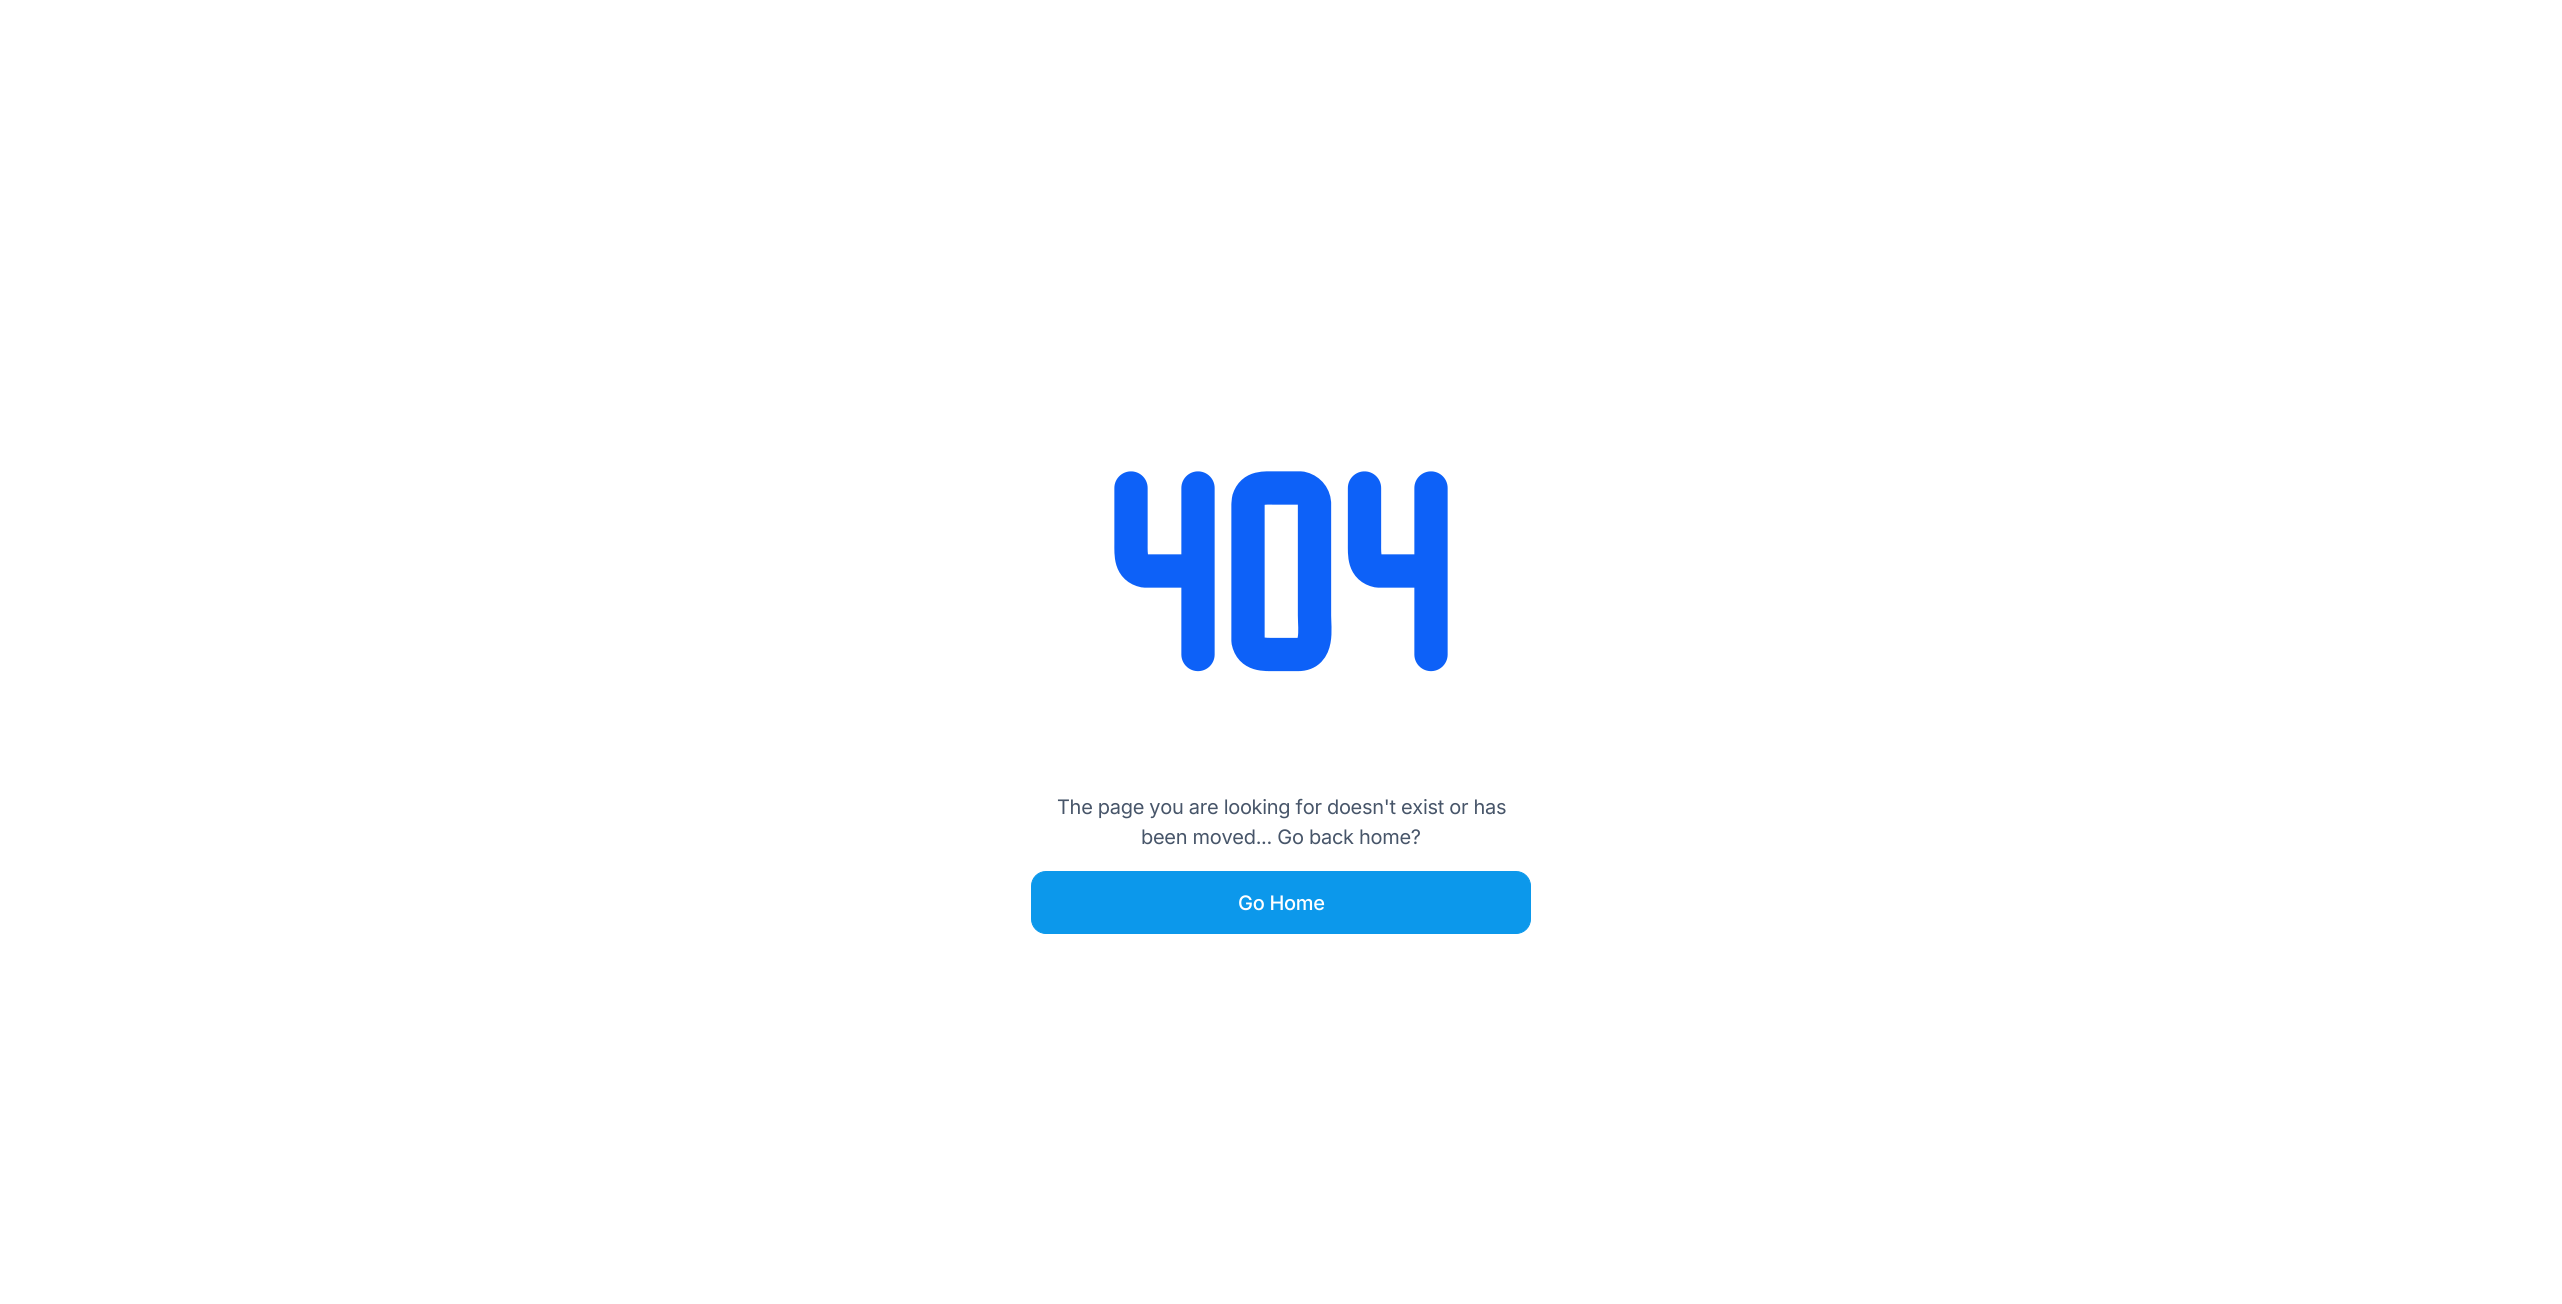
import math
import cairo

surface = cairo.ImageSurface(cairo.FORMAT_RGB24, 2562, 1304)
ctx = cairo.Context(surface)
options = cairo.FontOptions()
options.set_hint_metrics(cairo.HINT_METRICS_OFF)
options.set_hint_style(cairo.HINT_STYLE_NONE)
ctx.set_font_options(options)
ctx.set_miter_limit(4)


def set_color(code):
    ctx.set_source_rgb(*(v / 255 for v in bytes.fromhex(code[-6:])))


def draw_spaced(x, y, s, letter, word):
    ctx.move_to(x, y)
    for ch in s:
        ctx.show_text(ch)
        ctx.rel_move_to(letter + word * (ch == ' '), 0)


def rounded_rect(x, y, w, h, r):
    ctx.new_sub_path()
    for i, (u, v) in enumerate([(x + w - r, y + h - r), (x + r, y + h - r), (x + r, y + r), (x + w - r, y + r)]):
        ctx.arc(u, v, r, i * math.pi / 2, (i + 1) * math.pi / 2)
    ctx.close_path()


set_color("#ffffff")
ctx.paint()
ctx.new_path()
ctx.move_to(1131, 488)
ctx.line_to(1131, 543.5)
ctx.curve_to(1131, 555, 1130, 568, 1144.5, 571)
ctx.line_to(1198, 571)
ctx.move_to(1198, 488)
ctx.line_to(1198, 654.5)
ctx.move_to(1364.5, 488)
ctx.line_to(1364.5, 543.5)
ctx.curve_to(1364.5, 555, 1363.5, 568, 1378, 571)
ctx.line_to(1431, 571)
ctx.move_to(1431, 488)
ctx.line_to(1431, 654.5)
ctx.move_to(1248, 504.5)
ctx.line_to(1248, 641)
ctx.curve_to(1251, 655.5, 1264, 654.5, 1275.5, 654.5)
ctx.line_to(1298, 654.5)
ctx.curve_to(1319, 654.5, 1314.5, 629, 1314.5, 615.5)
ctx.line_to(1314.5, 503)
ctx.curve_to(1314, 495.5, 1308.5, 489.5, 1301, 488)
ctx.line_to(1275.5, 488)
ctx.curve_to(1264.5, 488, 1252.5, 486.5, 1248.5, 499.5)
ctx.close_path()
set_color("#0d61f8")
ctx.set_line_width(33.3)
ctx.set_line_cap(cairo.LINE_CAP_ROUND)
ctx.set_line_join(cairo.LINE_JOIN_ROUND)
ctx.stroke()
ctx.select_font_face("Inter")
ctx.set_font_size(20)
set_color("#475569")
draw_spaced(1057, 814, "The page you are looking for doesn't exist or has", -0.3, 0)
draw_spaced(1141, 844, "been moved... Go back home?", -0.3, 0)
set_color("#0c98eb")
rounded_rect(1031.5, 871.5, 499, 62, 14.5)
ctx.fill_preserve()
ctx.set_line_width(1)
ctx.set_line_cap(cairo.LINE_CAP_BUTT)
ctx.set_line_join(cairo.LINE_JOIN_MITER)
ctx.stroke()
ctx.select_font_face("Inter Medium")
set_color("#ffffff")
draw_spaced(1238, 910, "Go Home", -0.3, 0)
surface.write_to_png("output.png")
